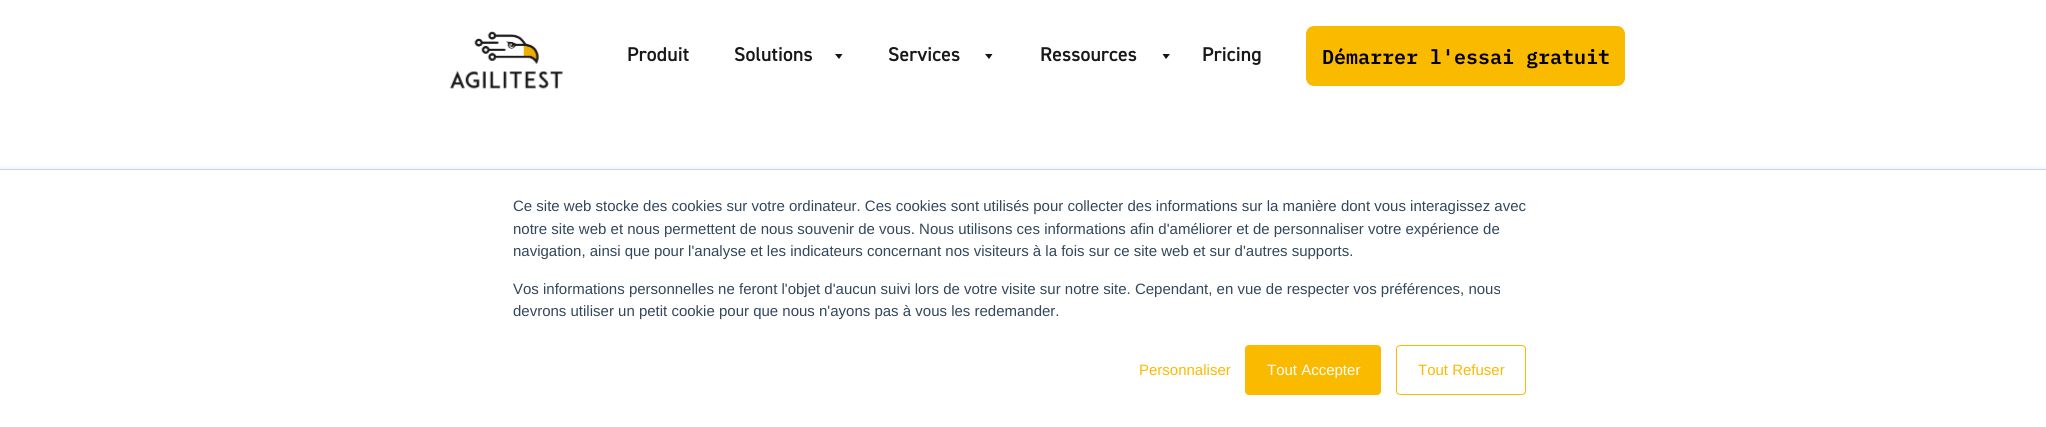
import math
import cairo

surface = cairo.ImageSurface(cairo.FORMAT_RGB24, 2046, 427)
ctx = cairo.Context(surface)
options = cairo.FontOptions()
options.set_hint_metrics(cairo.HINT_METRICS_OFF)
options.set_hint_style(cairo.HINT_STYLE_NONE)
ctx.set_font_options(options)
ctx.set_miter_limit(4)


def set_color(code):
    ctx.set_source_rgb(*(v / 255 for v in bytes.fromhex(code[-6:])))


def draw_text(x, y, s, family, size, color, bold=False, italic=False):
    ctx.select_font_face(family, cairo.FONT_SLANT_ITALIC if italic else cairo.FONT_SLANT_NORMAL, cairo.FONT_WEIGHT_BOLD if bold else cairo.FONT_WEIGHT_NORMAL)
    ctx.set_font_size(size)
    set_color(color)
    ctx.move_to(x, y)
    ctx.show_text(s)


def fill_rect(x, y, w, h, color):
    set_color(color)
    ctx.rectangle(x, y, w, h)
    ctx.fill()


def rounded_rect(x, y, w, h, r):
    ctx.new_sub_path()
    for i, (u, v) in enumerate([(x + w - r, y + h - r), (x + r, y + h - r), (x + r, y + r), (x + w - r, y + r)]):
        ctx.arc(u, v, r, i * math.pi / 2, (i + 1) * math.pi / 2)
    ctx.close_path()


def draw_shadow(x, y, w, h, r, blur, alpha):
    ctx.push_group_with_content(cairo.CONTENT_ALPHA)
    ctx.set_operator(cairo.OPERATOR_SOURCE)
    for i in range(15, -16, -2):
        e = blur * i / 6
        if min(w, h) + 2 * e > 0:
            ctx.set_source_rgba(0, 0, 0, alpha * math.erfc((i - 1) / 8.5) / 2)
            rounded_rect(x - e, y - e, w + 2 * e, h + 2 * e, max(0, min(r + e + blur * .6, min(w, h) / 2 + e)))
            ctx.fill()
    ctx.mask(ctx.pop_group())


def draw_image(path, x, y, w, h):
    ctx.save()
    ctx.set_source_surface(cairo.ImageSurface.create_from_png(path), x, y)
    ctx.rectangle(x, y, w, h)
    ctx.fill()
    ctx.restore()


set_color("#ffffff")
ctx.paint()
draw_image("assets/img1.png", 449, 31, 114, 58)
draw_text(627, 61, "Produit", "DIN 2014 SemiBold", 20, "#1a171b")
draw_text(734, 61, "Solutions", "DIN 2014 SemiBold", 20, "#1a171b")
set_color("#141414")
ctx.new_path()
ctx.move_to(839, 59)
ctx.line_to(835, 54)
ctx.line_to(842.5, 54)
ctx.close_path()
ctx.fill()
draw_text(888, 61, "Services", "DIN 2014 SemiBold", 20, "#1a171b")
set_color("#141414")
ctx.new_path()
ctx.move_to(989, 59)
ctx.line_to(985, 54)
ctx.line_to(992.5, 54)
ctx.close_path()
ctx.fill()
draw_text(1040, 61, "Ressources", "DIN 2014 SemiBold", 20, "#1a171b")
set_color("#141414")
ctx.new_path()
ctx.move_to(1166, 59)
ctx.line_to(1162.5, 54)
ctx.line_to(1170, 54)
ctx.close_path()
ctx.fill()
draw_text(1202, 61, "Pricing", "DIN 2014 SemiBold", 20, "#1a171b")
set_color("#faba00")
rounded_rect(1306, 26, 319, 60, 8)
ctx.fill()
draw_text(1322, 64, "Démarrer l'essai gratuit", "IBM Plex Mono SemiBold", 20, "#000000")
set_color("#eaf0f6")
draw_shadow(0, 168, 2046, 258, 0, 2, 1)
fill_rect(0, 170, 2046, 257, "#ffffff")
fill_rect(0, 169, 2046, 1, "#cbd6e2")
draw_text(513, 211, "Ce site web stocke des cookies sur votre ordinateur. Ces cookies sont utilisés pour collecter des informations sur la manière dont vous interagissez avec", "Liberation Sans", 15, "#33475b")
draw_text(513, 234, "notre site web et nous permettent de nous souvenir de vous. Nous utilisons ces informations afin d'améliorer et de personnaliser votre expérience de", "Liberation Sans", 15, "#33475b")
draw_text(513, 256, "navigation, ainsi que pour l'analyse et les indicateurs concernant nos visiteurs à la fois sur ce site web et sur d'autres supports.", "Liberation Sans", 15, "#33475b")
draw_text(513, 294, "Vos informations personnelles ne feront l'objet d'aucun suivi lors de votre visite sur notre site. Cependant, en vue de respecter vos préférences, nous", "Liberation Sans", 15, "#33475b")
draw_text(513, 316, "devrons utiliser un petit cookie pour que nous n'ayons pas à vous les redemander.", "Liberation Sans", 15, "#33475b")
draw_text(1139, 375, "Personnaliser", "Liberation Sans", 15, "#faba00")
rounded_rect(1245.5, 345.5, 135, 49, 3.5)
ctx.fill_preserve()
ctx.set_line_width(1)
ctx.stroke()
draw_text(1267, 375, "Tout Accepter", "Liberation Sans", 15, "#ffffff")
rounded_rect(1396.5, 345.5, 129, 49, 3.5)
set_color("#faba00")
ctx.stroke()
draw_text(1418, 375, "Tout Refuser", "Liberation Sans", 15, "#faba00")
surface.write_to_png("output.png")
